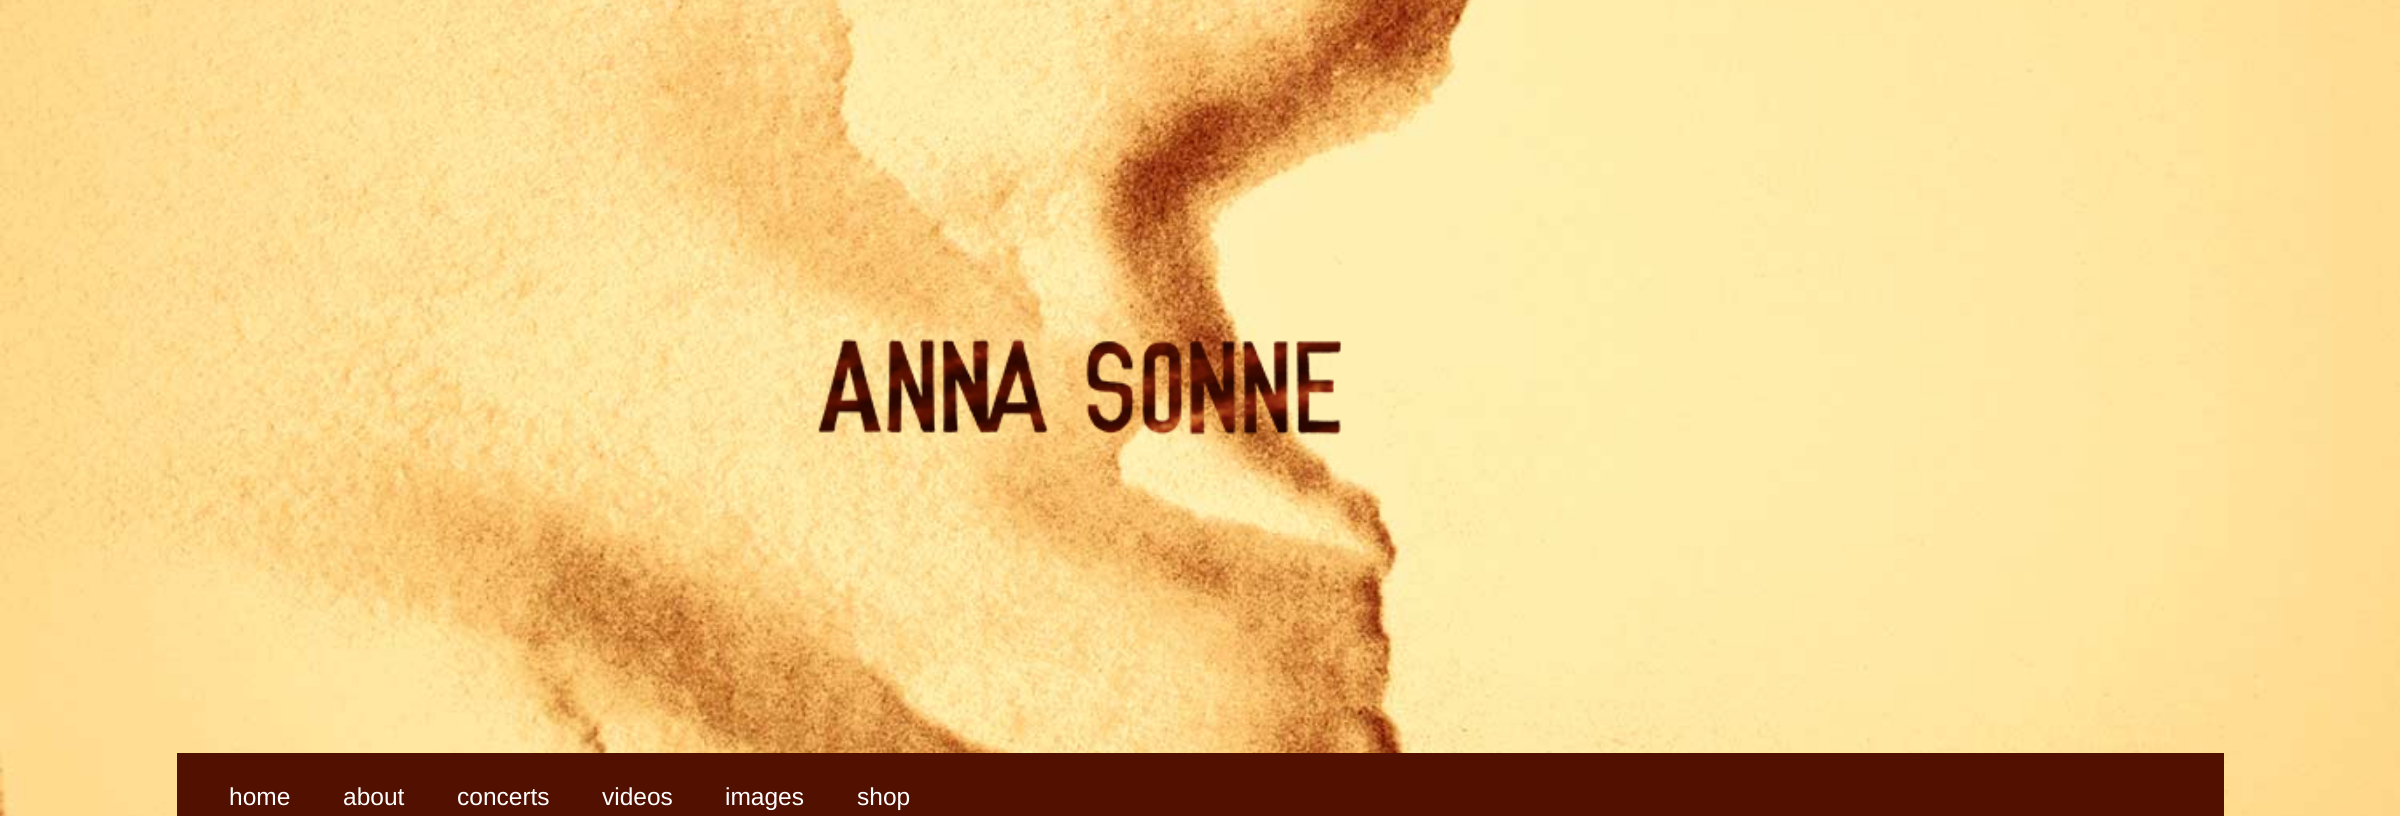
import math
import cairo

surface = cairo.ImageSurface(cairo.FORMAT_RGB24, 2400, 816)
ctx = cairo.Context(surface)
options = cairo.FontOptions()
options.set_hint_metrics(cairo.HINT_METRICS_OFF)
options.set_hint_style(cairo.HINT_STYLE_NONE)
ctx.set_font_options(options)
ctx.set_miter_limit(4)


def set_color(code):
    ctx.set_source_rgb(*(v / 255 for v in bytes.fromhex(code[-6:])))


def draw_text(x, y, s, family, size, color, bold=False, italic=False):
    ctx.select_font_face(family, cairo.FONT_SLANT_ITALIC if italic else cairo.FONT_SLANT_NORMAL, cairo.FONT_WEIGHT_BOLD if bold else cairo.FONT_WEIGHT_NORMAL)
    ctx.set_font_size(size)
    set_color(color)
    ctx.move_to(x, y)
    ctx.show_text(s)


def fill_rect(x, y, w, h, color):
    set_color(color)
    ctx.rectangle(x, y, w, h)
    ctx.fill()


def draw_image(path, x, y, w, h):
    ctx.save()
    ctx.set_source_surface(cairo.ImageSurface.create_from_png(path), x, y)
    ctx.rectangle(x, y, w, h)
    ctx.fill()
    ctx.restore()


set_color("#ffffff")
ctx.paint()
draw_image("assets/img1.png", 0, 0, 2400, 816)
draw_image("assets/img2.png", 818, 339, 524, 96)
fill_rect(177, 753, 2047, 63, "#521000")
draw_text(229, 805, "home", "Liberation Sans", 24.5, "#ffffff")
draw_text(343, 805, "about", "Liberation Sans", 24.5, "#ffffff")
draw_text(457, 805, "concerts", "Liberation Sans", 24.5, "#ffffff")
draw_text(602, 805, "videos", "Liberation Sans", 24.5, "#ffffff")
draw_text(725, 805, "images", "Liberation Sans", 24.5, "#ffffff")
draw_text(857, 805, "shop", "Liberation Sans", 24.5, "#ffffff")
surface.write_to_png("output.png")
